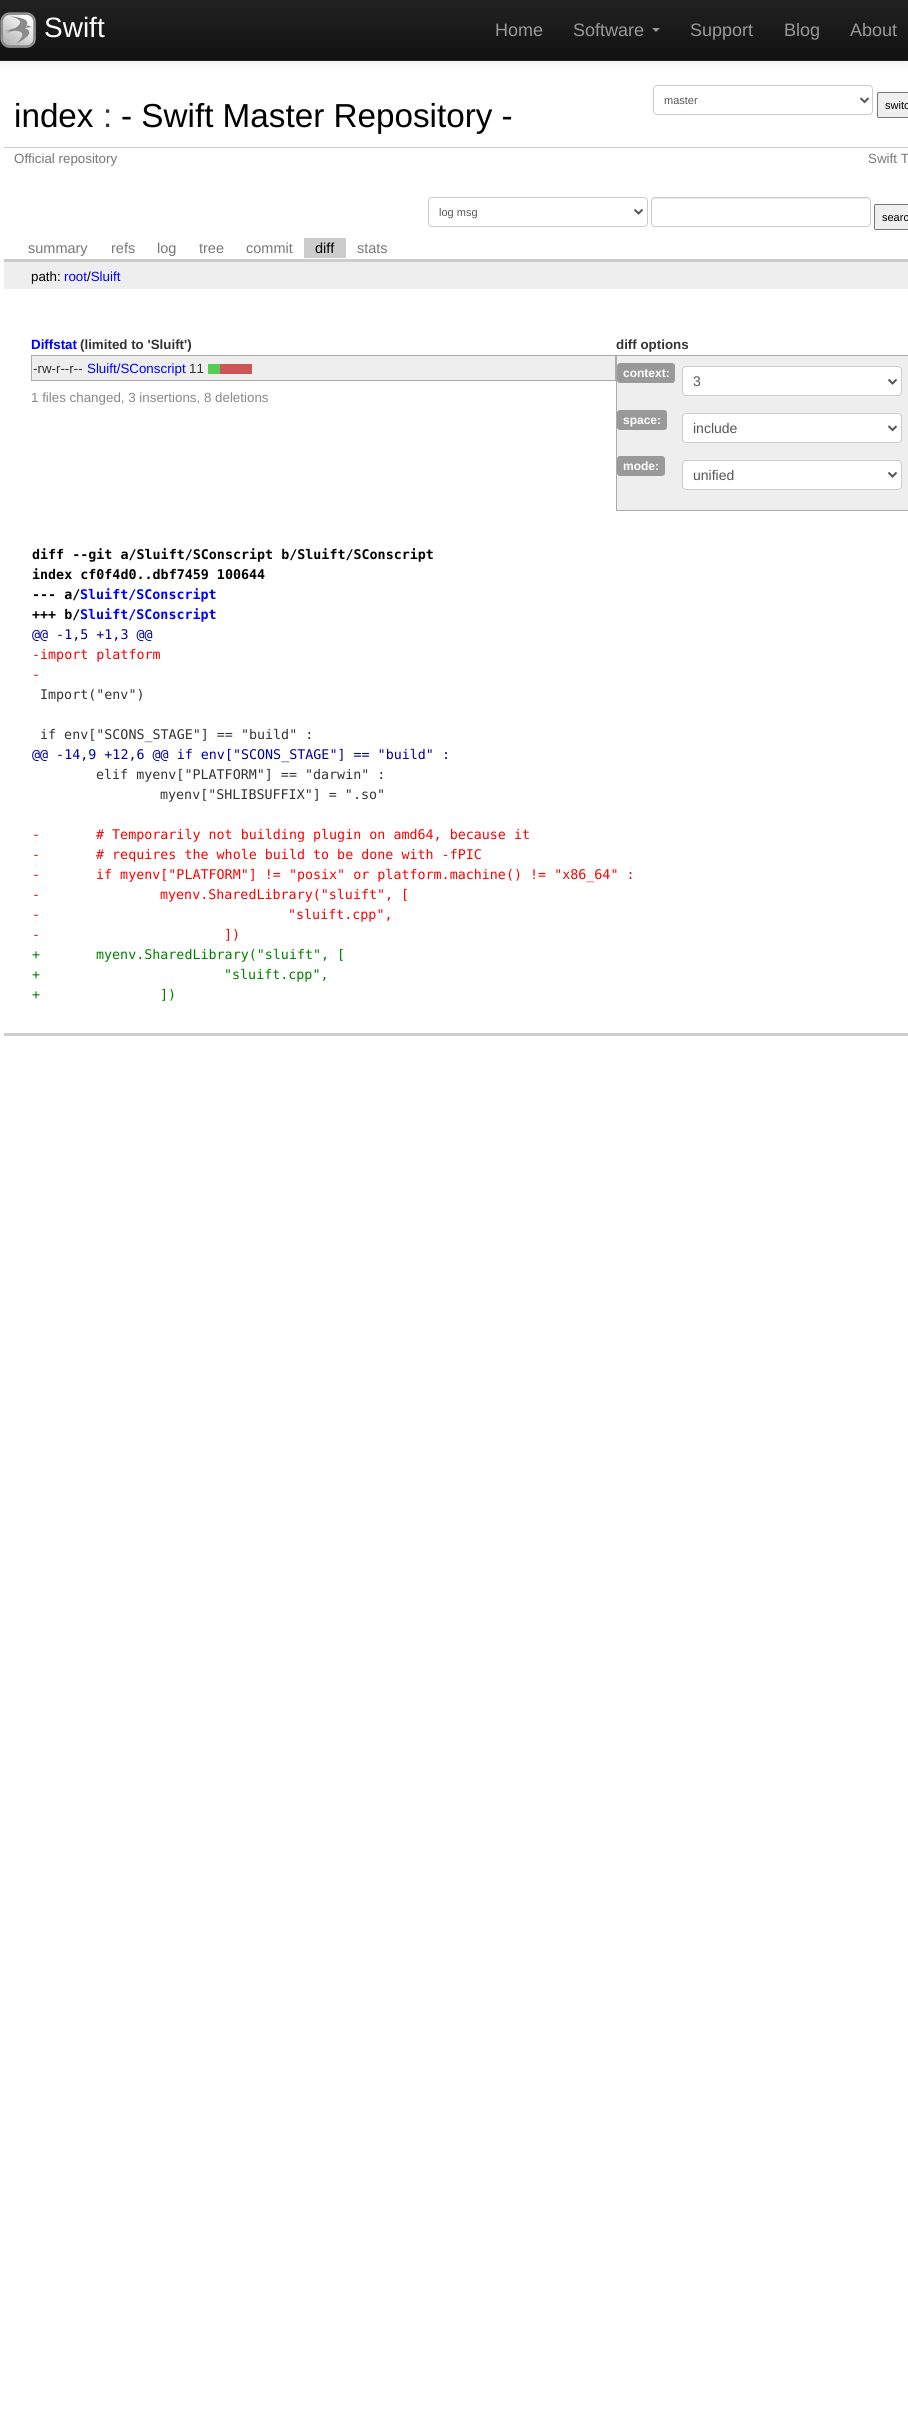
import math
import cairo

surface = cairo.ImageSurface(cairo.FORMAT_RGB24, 908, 2409)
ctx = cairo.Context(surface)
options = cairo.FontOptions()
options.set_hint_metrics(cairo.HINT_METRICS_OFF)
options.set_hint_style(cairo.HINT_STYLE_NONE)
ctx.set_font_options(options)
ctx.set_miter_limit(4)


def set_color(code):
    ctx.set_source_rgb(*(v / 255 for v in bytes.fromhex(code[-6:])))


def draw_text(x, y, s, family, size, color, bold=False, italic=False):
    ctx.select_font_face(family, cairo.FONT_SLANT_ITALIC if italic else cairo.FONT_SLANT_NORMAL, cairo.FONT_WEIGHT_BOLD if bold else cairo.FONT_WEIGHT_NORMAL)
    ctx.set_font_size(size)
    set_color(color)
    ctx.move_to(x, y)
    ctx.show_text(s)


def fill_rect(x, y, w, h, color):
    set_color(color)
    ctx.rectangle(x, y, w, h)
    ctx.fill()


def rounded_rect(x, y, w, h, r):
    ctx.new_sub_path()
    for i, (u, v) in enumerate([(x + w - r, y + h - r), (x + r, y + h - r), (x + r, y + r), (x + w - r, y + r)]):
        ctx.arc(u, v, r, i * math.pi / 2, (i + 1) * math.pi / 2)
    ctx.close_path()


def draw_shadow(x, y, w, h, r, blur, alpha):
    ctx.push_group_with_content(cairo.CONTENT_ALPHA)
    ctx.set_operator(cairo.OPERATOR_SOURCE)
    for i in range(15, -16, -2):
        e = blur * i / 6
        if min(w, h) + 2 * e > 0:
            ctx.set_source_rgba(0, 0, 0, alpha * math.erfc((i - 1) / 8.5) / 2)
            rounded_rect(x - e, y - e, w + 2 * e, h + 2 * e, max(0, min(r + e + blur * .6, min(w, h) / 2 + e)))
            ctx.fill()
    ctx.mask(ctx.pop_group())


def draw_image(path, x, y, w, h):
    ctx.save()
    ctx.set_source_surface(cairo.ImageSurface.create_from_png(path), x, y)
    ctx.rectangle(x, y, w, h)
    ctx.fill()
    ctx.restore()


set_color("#ffffff")
ctx.paint()
set_color("#000000")
draw_shadow(0, 1, 908, 61, 0, 5, 0.1)
gradient = cairo.LinearGradient(454, 0, 454, 60)
gradient.add_color_stop_rgba(0, 0.133, 0.133, 0.133, 1)
gradient.add_color_stop_rgba(1, 0.067, 0.067, 0.067, 1)
ctx.set_source(gradient)
ctx.rectangle(0, 0, 908, 60)
ctx.fill()
fill_rect(0, 60, 908, 1, "#252525")
draw_image("assets/img1.png", 0, 12, 36, 36)
draw_text(44, 37, "Swift", "Liberation Sans", 28, "#ffffff")
draw_text(495, 36, "Home", "Liberation Sans", 18, "#999999")
draw_text(573, 36, "Software", "Liberation Sans", 18, "#999999")
ctx.new_path()
ctx.move_to(652, 28)
ctx.line_to(660, 28)
ctx.line_to(656, 32)
ctx.close_path()
ctx.fill()
draw_text(690, 36, "Support", "Liberation Sans", 18, "#999999")
draw_text(784, 36, "Blog", "Liberation Sans", 18, "#999999")
draw_text(850, 36, "About", "Liberation Sans", 18, "#999999")
draw_text(14, 127, "index", "Liberation Sans", 33.25, "#000000")
draw_text(103, 127, ":", "Liberation Sans", 33.25, "#333333")
draw_text(121, 127, "- Swift Master Repository -", "Liberation Sans", 33.25, "#000000")
rounded_rect(653.5, 85.5, 219, 29, 3.5)
set_color("#cccccc")
ctx.set_line_width(1)
ctx.stroke()
ctx.new_path()
ctx.move_to(860.5, 98)
ctx.line_to(864.5, 102)
ctx.line_to(868.5, 98)
set_color("#555555")
ctx.set_line_width(2)
ctx.stroke()
draw_text(664, 104, "master", "Liberation Sans", 11, "#555555")
set_color("#efefef")
rounded_rect(877.5, 92.5, 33, 25, 1.5)
ctx.fill_preserve()
set_color("#767676")
ctx.set_line_width(1)
ctx.stroke()
draw_text(885, 109, "switc", "Liberation Sans", 11, "#000000")
draw_text(14, 163, "Official repository", "Liberation Sans", 13.35, "#777777")
fill_rect(4, 147, 904, 1, "#cccccc")
draw_text(868, 163, "Swift T", "Liberation Sans", 13.35, "#777777")
fill_rect(4, 259, 904, 3, "#cccccc")
rounded_rect(428.5, 197.5, 219, 29, 3.5)
ctx.stroke()
ctx.new_path()
ctx.move_to(634.5, 209.5)
ctx.line_to(638.5, 213.5)
ctx.line_to(642.5, 209.5)
set_color("#555555")
ctx.set_line_width(2)
ctx.stroke()
draw_text(439, 216, "log msg", "Liberation Sans", 11, "#555555")
set_color("#ececec")
ctx.new_path()
ctx.move_to(655, 199)
ctx.line_to(867, 199)
ctx.curve_to(869, 199, 870, 200, 870, 202)
ctx.line_to(870, 201)
ctx.curve_to(870, 199, 869, 198, 867, 198)
ctx.line_to(655, 198)
ctx.curve_to(653, 198, 652, 199, 652, 201)
ctx.line_to(652, 202)
ctx.curve_to(652, 200, 653, 199, 655, 199)
ctx.close_path()
ctx.fill()
rounded_rect(651.5, 197.5, 219, 29, 3.5)
set_color("#cccccc")
ctx.set_line_width(1)
ctx.stroke()
set_color("#efefef")
rounded_rect(874.5, 204.5, 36, 25, 1.5)
ctx.fill_preserve()
set_color("#767676")
ctx.stroke()
draw_text(882, 221, "searc", "Liberation Sans", 11, "#000000")
draw_text(28, 253, "summary", "Liberation Sans", 14.5, "#777777")
draw_text(111, 253, "refs", "Liberation Sans", 14.5, "#777777")
draw_text(157, 253, "log", "Liberation Sans", 14.5, "#777777")
draw_text(199, 253, "tree", "Liberation Sans", 14.5, "#777777")
draw_text(246, 253, "commit", "Liberation Sans", 14.5, "#777777")
fill_rect(304, 238, 42, 20, "#cccccc")
draw_text(315, 253, "diff", "Liberation Sans", 14.5, "#000000")
draw_text(357, 253, "stats", "Liberation Sans", 14.5, "#777777")
fill_rect(4, 262, 904, 27, "#eeeeee")
draw_text(31, 281, "path:", "Liberation Sans", 13.35, "#000000")
draw_text(64, 281, "root Sluift", "Liberation Sans", 13.35, "#0000ff")
draw_text(87, 281, "/", "Liberation Sans", 13.35, "#000000")
fill_rect(4, 1033, 904, 3, "#cccccc")
draw_text(31, 349, "Diffstat", "Liberation Sans", 13.35, "#0000ff", bold=True)
draw_text(80, 349, "(limited to 'Sluift')", "Liberation Sans", 13.35, "#333333", bold=True)
draw_text(616, 349, "diff options", "Liberation Sans", 13.35, "#333333", bold=True)
fill_rect(617, 356, 291, 154, "#eeeeee")
fill_rect(616, 510, 292, 1, "#aaaaaa")
fill_rect(31, 355, 877, 1, "#aaaaaa")
fill_rect(616, 355, 1, 156, "#aaaaaa")
set_color("#999999")
rounded_rect(617, 363, 58, 20, 3)
ctx.fill()
draw_text(623, 377, "context:", "Liberation Sans", 12, "#ffffff", bold=True)
rounded_rect(682.5, 366.5, 219, 29, 3.5)
ctx.fill_preserve()
set_color("#cccccc")
ctx.stroke()
ctx.new_path()
ctx.move_to(888.5, 379.5)
ctx.line_to(892.5, 383.5)
ctx.line_to(896.5, 379.5)
set_color("#555555")
ctx.set_line_width(2)
ctx.stroke()
draw_text(693, 386, "3", "Liberation Sans", 14, "#555555")
set_color("#999999")
rounded_rect(617, 410, 50, 20, 3)
ctx.fill()
draw_text(623, 424, "space:", "Liberation Sans", 12, "#ffffff", bold=True)
rounded_rect(682.5, 413.5, 219, 29, 3.5)
ctx.fill_preserve()
set_color("#cccccc")
ctx.set_line_width(1)
ctx.stroke()
ctx.new_path()
ctx.move_to(888.5, 426)
ctx.line_to(892.5, 430)
ctx.line_to(896.5, 426)
set_color("#555555")
ctx.set_line_width(2)
ctx.stroke()
draw_text(693, 433, "include", "Liberation Sans", 14, "#555555")
set_color("#999999")
rounded_rect(617, 456, 48, 20, 3)
ctx.fill()
draw_text(623, 470, "mode:", "Liberation Sans", 12, "#ffffff", bold=True)
rounded_rect(682.5, 460.5, 219, 29, 3.5)
ctx.fill_preserve()
set_color("#cccccc")
ctx.set_line_width(1)
ctx.stroke()
ctx.new_path()
ctx.move_to(888.5, 472.5)
ctx.line_to(892.5, 476.5)
ctx.line_to(896.5, 472.5)
set_color("#555555")
ctx.set_line_width(2)
ctx.stroke()
draw_text(693, 480, "unified", "Liberation Sans", 14, "#555555")
fill_rect(32, 356, 583, 24, "#eeeeee")
fill_rect(615, 355, 1, 26, "#aaaaaa")
fill_rect(31, 380, 585, 1, "#aaaaaa")
fill_rect(31, 355, 1, 26, "#aaaaaa")
draw_text(33, 373, "-rw-r--r--", "Liberation Sans", 13.35, "#333333")
draw_text(87, 373, "Sluift/SConscript", "Liberation Sans", 13.35, "#0000ff")
draw_text(189, 373, "11", "Liberation Sans", 13.35, "#333333")
fill_rect(208, 364, 12, 10, "#55cc55")
fill_rect(220, 364, 32, 10, "#cc5555")
draw_text(31, 402, "1 files changed, 3 insertions, 8 deletions", "Liberation Sans", 13.35, "#888888")
draw_text(32, 559, "diff --git a/Sluift/SConscript b/Sluift/SConscript", "DejaVu Sans Mono", 13.35, "#000000", bold=True)
draw_text(32, 579, "index cf0f4d0..dbf7459 100644", "DejaVu Sans Mono", 13.35, "#000000", bold=True)
draw_text(32, 599, "--- a/", "DejaVu Sans Mono", 13.35, "#000000", bold=True)
draw_text(80, 599, "Sluift/SConscript", "DejaVu Sans Mono", 13.35, "#0000ff", bold=True)
draw_text(32, 619, "+++ b/", "DejaVu Sans Mono", 13.35, "#000000", bold=True)
draw_text(80, 619, "Sluift/SConscript", "DejaVu Sans Mono", 13.35, "#0000ff", bold=True)
draw_text(32, 639, "@@ -1,5 +1,3 @@", "DejaVu Sans Mono", 13.35, "#000099")
draw_text(32, 659, "-import platform", "DejaVu Sans Mono", 13.35, "#ff0000")
draw_text(32, 679, "-", "DejaVu Sans Mono", 13.35, "#ff0000")
draw_text(40, 699, "Import(\"env\")", "DejaVu Sans Mono", 13.35, "#333333")
draw_text(40, 739, "if env[\"SCONS_STAGE\"] == \"build\" :", "DejaVu Sans Mono", 13.35, "#333333")
draw_text(32, 759, "@@ -14,9 +12,6 @@ if env[\"SCONS_STAGE\"] == \"build\" :", "DejaVu Sans Mono", 13.35, "#000099")
draw_text(96, 779, "elif myenv[\"PLATFORM\"] == \"darwin\" :", "DejaVu Sans Mono", 13.35, "#333333")
draw_text(160, 799, "myenv[\"SHLIBSUFFIX\"] = \".so\"", "DejaVu Sans Mono", 13.35, "#333333")
draw_text(32, 839, "-", "DejaVu Sans Mono", 13.35, "#ff0000")
draw_text(96, 839, "# Temporarily not building plugin on amd64, because it", "DejaVu Sans Mono", 13.35, "#ff0000")
draw_text(32, 859, "-", "DejaVu Sans Mono", 13.35, "#ff0000")
draw_text(96, 859, "# requires the whole build to be done with -fPIC", "DejaVu Sans Mono", 13.35, "#ff0000")
draw_text(32, 879, "-", "DejaVu Sans Mono", 13.35, "#ff0000")
draw_text(96, 879, "if myenv[\"PLATFORM\"] != \"posix\" or platform.machine() != \"x86_64\" :", "DejaVu Sans Mono", 13.35, "#ff0000")
draw_text(32, 899, "-", "DejaVu Sans Mono", 13.35, "#ff0000")
draw_text(160, 899, "myenv.SharedLibrary(\"sluift\", [", "DejaVu Sans Mono", 13.35, "#ff0000")
draw_text(32, 919, "-", "DejaVu Sans Mono", 13.35, "#ff0000")
draw_text(288, 919, "\"sluift.cpp\",", "DejaVu Sans Mono", 13.35, "#ff0000")
draw_text(32, 939, "-", "DejaVu Sans Mono", 13.35, "#ff0000")
draw_text(224, 939, "])", "DejaVu Sans Mono", 13.35, "#ff0000")
draw_text(32, 959, "+", "DejaVu Sans Mono", 13.35, "#008000")
draw_text(96, 959, "myenv.SharedLibrary(\"sluift\", [", "DejaVu Sans Mono", 13.35, "#008000")
draw_text(32, 979, "+", "DejaVu Sans Mono", 13.35, "#008000")
draw_text(224, 979, "\"sluift.cpp\",", "DejaVu Sans Mono", 13.35, "#008000")
draw_text(32, 999, "+", "DejaVu Sans Mono", 13.35, "#008000")
draw_text(160, 999, "])", "DejaVu Sans Mono", 13.35, "#008000")
surface.write_to_png("output.png")
